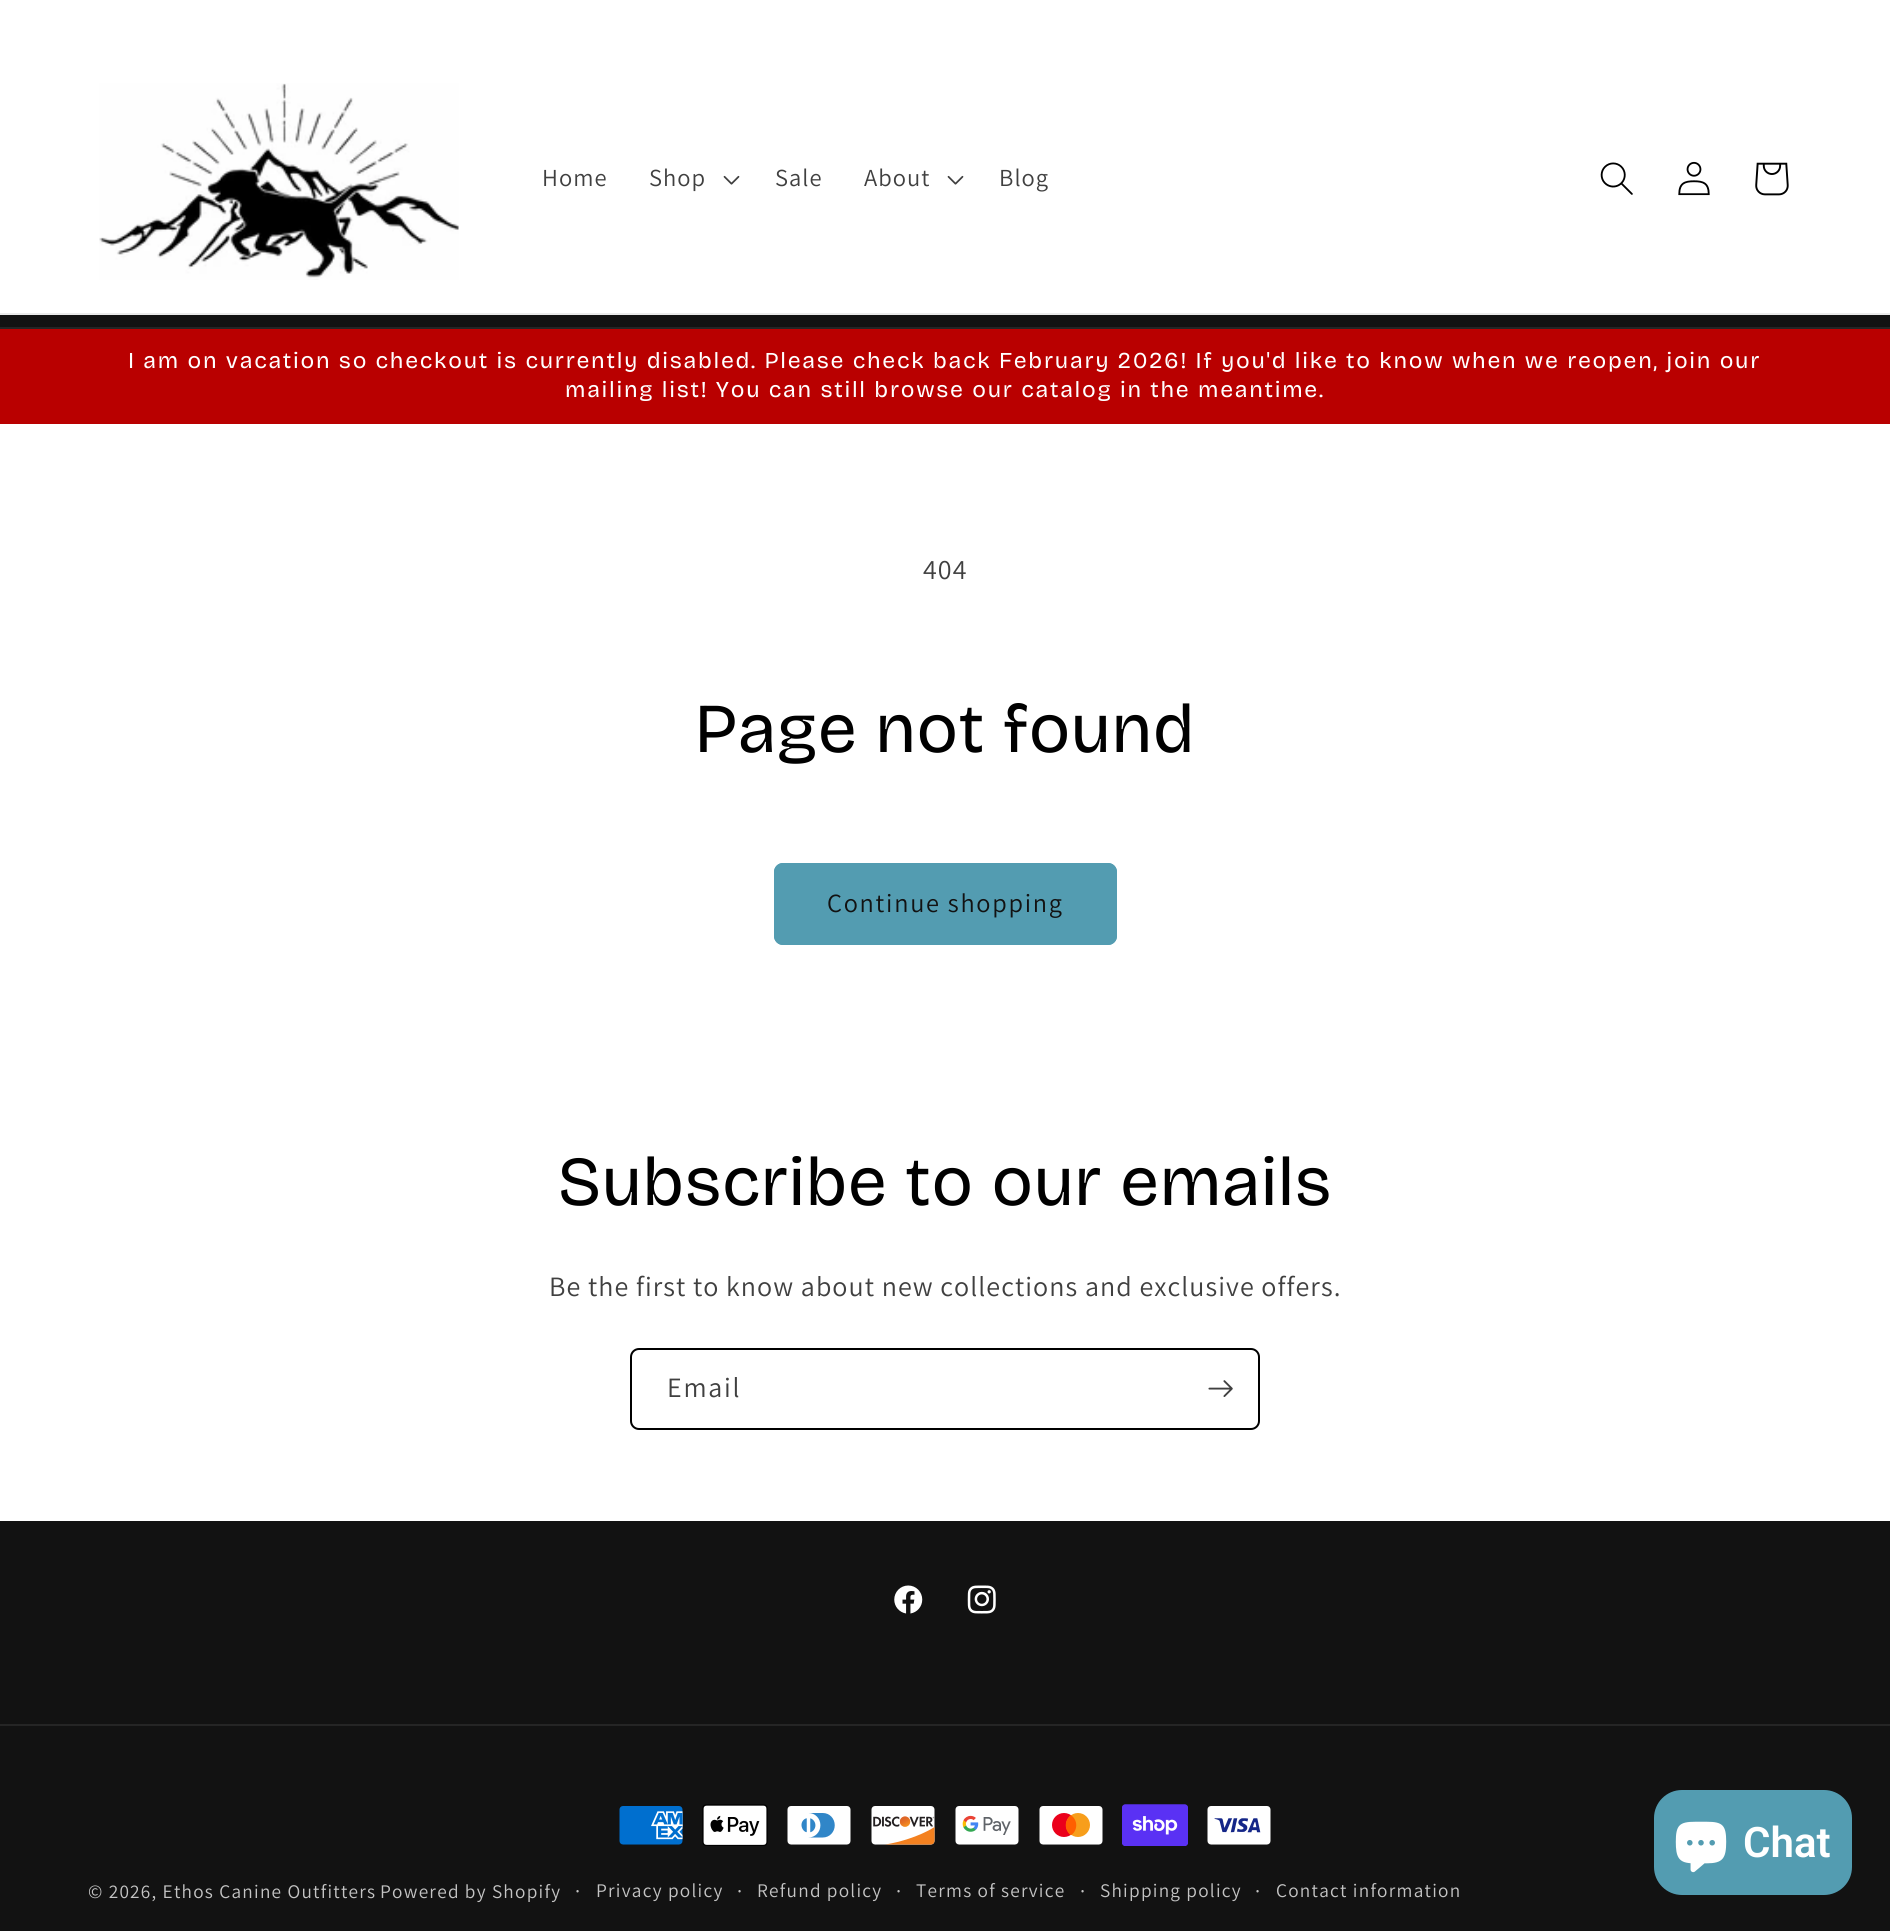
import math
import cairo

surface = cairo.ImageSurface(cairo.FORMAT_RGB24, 1890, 1931)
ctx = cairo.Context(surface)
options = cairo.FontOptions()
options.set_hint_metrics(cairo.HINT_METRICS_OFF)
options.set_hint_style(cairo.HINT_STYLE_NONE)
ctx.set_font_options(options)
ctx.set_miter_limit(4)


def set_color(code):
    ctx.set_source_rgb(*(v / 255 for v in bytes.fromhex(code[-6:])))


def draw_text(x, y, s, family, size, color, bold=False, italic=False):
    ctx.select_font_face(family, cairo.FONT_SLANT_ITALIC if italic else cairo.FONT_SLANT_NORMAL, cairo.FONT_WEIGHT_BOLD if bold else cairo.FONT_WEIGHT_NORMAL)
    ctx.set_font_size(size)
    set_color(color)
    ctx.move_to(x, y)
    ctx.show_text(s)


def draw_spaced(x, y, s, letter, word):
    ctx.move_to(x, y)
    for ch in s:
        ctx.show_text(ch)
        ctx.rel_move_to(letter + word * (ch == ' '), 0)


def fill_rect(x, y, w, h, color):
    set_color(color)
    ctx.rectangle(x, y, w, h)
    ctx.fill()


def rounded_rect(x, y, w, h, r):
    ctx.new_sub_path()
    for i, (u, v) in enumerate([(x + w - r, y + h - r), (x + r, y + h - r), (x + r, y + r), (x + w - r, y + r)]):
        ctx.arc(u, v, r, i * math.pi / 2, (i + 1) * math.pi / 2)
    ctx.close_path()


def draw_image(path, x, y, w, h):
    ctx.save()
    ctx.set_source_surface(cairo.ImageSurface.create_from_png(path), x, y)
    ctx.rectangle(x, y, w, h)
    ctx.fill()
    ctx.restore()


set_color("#ffffff")
ctx.paint()
fill_rect(0, 313, 1890, 2, "#ebebeb")
draw_image("assets/img1.png", 99, 83, 360, 197)
ctx.select_font_face("Assistant")
ctx.set_font_size(24.5)
set_color("#404040")
draw_spaced(542, 186, "Home", 1.05, 0)
draw_spaced(649, 186, "Shop", 1.05, 0)
draw_image("assets/img2.png", 723, 175, 17, 10)
draw_spaced(775, 186, "Sale", 1.05, 0)
draw_spaced(864, 186, "About", 1.05, 0)
draw_image("assets/img2.png", 947, 175, 17, 10)
draw_spaced(999, 186, "Blog", 1.05, 0)
draw_image("assets/img3.png", 1600, 162, 33, 33)
draw_image("assets/img4.png", 1678, 161, 32, 35)
draw_image("assets/img5.png", 1755, 162, 34, 34)
fill_rect(0, 315, 1890, 12, "#121212")
fill_rect(0, 327, 1890, 2, "#252525")
fill_rect(0, 329, 1890, 95, "#b90000")
ctx.select_font_face("Bricolage Grotesque")
ctx.set_font_size(22.75)
set_color("#ffffff")
draw_spaced(128, 368, "I am on vacation so checkout is currently disabled. Please check back February 2026! If you'd like to know when we reopen, join our", 1.75, 0)
draw_spaced(565, 397, "mailing list! You can still browse our catalog in the meantime.", 1.75, 0)
ctx.select_font_face("Assistant")
ctx.set_font_size(28)
set_color("#404040")
draw_spaced(923, 579, "404", 1.05, 0)
ctx.select_font_face("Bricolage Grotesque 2")
ctx.set_font_size(70)
set_color("#000000")
draw_spaced(695, 752, "Page not found", 1.05, 0)
set_color("#539cb1")
rounded_rect(774, 863, 343, 82, 9)
ctx.fill()
rounded_rect(775, 864, 341, 80, 8)
ctx.stroke()
ctx.select_font_face("Assistant")
ctx.set_font_size(26.25)
set_color("#121212")
draw_spaced(827, 912, "Continue shopping", 1.75, 0)
ctx.select_font_face("Bricolage Grotesque 2")
ctx.set_font_size(70)
set_color("#000000")
draw_spaced(558, 1205, "Subscribe to our emails", 1.05, 0)
ctx.select_font_face("Assistant")
ctx.set_font_size(28)
set_color("#404040")
draw_spaced(549, 1296, "Be the first to know about new collections and exclusive offers.", 1.05, 0)
rounded_rect(631, 1349, 628, 80, 8)
set_color("#000000")
ctx.stroke()
set_color("#404040")
draw_spaced(667, 1397, "Email", 1.75, 0)
draw_image("assets/img6.png", 1208, 1380, 25, 17)
fill_rect(0, 1521, 1890, 410, "#121212")
set_color("#539cb1")
rounded_rect(1654, 1790, 198, 105, 28)
ctx.fill()
draw_image("assets/img7.png", 1675, 1821, 52, 52)
draw_text(1743, 1857, "Chat", "Roboto SemiBold", 42, "#ffffff")
draw_image("assets/img8.png", 894, 1585, 29, 29)
draw_image("assets/img9.png", 967, 1585, 29, 29)
fill_rect(0, 1724, 1890, 2, "#252525")
draw_image("assets/img10.png", 619, 1806, 64, 39)
draw_image("assets/img11.png", 702, 1804, 66, 42)
draw_image("assets/img12.png", 787, 1806, 64, 39)
draw_image("assets/img13.png", 871, 1806, 64, 39)
draw_image("assets/img14.png", 955, 1806, 64, 39)
draw_image("assets/img15.png", 1039, 1806, 64, 39)
draw_image("assets/img16.png", 1122, 1804, 66, 42)
draw_image("assets/img17.png", 1207, 1806, 64, 39)
ctx.select_font_face("Assistant")
ctx.set_font_size(19.25)
set_color("#c4c4c4")
draw_spaced(88, 1898, "© 2026, Ethos Canine Outfitters", 1.25, 0)
draw_spaced(380, 1898, "Powered by Shopify", 1.25, 0)
ctx.set_font_size(21)
draw_spaced(575, 1898, "·", 1.25, 0)
ctx.set_font_size(19.25)
draw_spaced(596, 1897, "Privacy policy", 1.25, 0)
ctx.set_font_size(21)
draw_spaced(737, 1898, "·", 1.25, 0)
ctx.set_font_size(19.25)
draw_spaced(757, 1897, "Refund policy", 1.25, 0)
ctx.set_font_size(21)
draw_spaced(896, 1898, "·", 1.25, 0)
ctx.set_font_size(19.25)
draw_spaced(916, 1897, "Terms of service", 1.25, 0)
ctx.set_font_size(21)
draw_spaced(1080, 1898, "·", 1.25, 0)
ctx.set_font_size(19.25)
draw_spaced(1100, 1897, "Shipping policy", 1.25, 0)
ctx.set_font_size(21)
draw_spaced(1255, 1898, "·", 1.25, 0)
ctx.set_font_size(19.25)
draw_spaced(1276, 1897, "Contact information", 1.25, 0)
surface.write_to_png("output.png")
